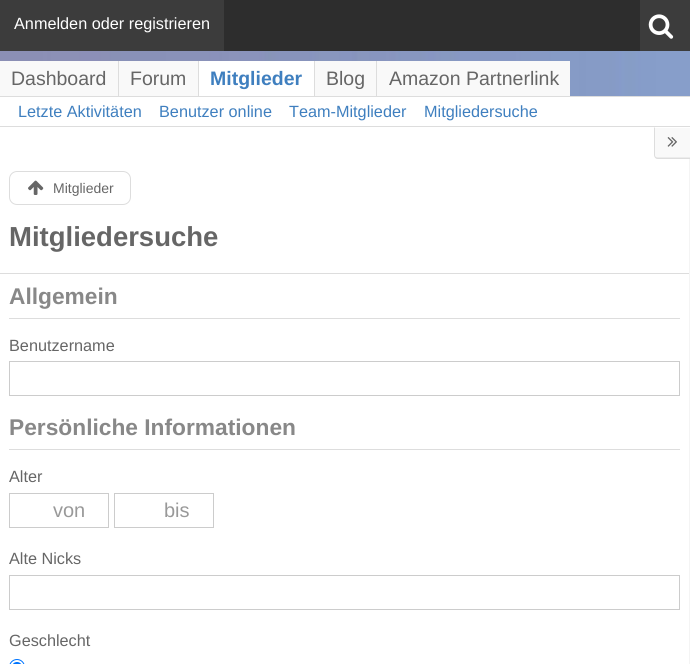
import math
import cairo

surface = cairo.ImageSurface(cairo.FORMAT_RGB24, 690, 664)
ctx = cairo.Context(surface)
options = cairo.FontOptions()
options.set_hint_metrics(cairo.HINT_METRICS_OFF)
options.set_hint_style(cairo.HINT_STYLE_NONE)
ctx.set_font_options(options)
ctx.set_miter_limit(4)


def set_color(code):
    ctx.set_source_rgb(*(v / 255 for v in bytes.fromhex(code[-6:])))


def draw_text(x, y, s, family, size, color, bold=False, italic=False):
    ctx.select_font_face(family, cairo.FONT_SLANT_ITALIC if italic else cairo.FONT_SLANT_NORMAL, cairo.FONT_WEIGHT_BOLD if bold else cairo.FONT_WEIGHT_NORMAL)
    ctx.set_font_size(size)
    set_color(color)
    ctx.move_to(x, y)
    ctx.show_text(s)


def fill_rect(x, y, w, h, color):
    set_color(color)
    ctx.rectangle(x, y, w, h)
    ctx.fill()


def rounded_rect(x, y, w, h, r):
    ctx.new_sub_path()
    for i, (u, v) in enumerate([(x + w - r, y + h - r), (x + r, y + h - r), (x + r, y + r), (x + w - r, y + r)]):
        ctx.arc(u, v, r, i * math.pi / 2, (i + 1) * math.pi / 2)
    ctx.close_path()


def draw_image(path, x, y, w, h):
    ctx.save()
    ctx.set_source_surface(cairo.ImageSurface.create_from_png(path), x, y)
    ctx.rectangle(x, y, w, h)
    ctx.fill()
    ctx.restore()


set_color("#ffffff")
ctx.paint()
draw_image("assets/img1.png", 0, 51, 690, 45)
fill_rect(224, 0, 416, 51, "#2d2d2d")
fill_rect(0, 0, 224, 51, "#3c3c3c")
draw_text(14, 29, "Anmelden oder registrieren", "Liberation Sans", 16.25, "#ffffff")
fill_rect(640, 0, 50, 51, "#3c3c3c")
draw_image("assets/img2.png", 648, 14, 26, 25)
fill_rect(0, 61, 570, 35, "#f9f9f9")
fill_rect(118, 61, 1, 35, "#dddddd")
draw_text(11, 85, "Dashboard", "Liberation Sans", 19.5, "#666666")
fill_rect(198, 61, 1, 35, "#dddddd")
draw_text(130, 85, "Forum", "Liberation Sans", 19.5, "#666666")
fill_rect(199, 61, 115, 35, "#ffffff")
fill_rect(314, 61, 1, 37, "#dddddd")
draw_text(210, 85, "Mitglieder", "Liberation Sans", 19.5, "#3f7fbf", bold=True)
fill_rect(376, 61, 1, 35, "#dddddd")
draw_text(326, 85, "Blog", "Liberation Sans", 19.5, "#666666")
draw_text(389, 85, "Amazon Partnerlink", "Liberation Sans", 19.5, "#666666")
fill_rect(314, 97, 1, 1, "#ffffff")
fill_rect(0, 96, 690, 1, "#dddddd")
fill_rect(0, 126, 690, 1, "#dddddd")
draw_text(18, 117, "Letzte Aktivitäten", "Liberation Sans", 16.25, "#3f7fbf")
draw_text(159, 117, "Benutzer online", "Liberation Sans", 16.25, "#3f7fbf")
draw_text(289, 117, "Team-Mitglieder", "Liberation Sans", 16.25, "#3f7fbf")
draw_text(424, 117, "Mitgliedersuche", "Liberation Sans", 16.25, "#3f7fbf")
fill_rect(689, 159, 1, 505, "#f4f4f4")
set_color("#f9f9f9")
ctx.new_path()
ctx.move_to(655, 128)
ctx.line_to(690, 128)
ctx.line_to(690, 158)
ctx.line_to(657.5, 158)
ctx.curve_to(656, 158, 655, 157, 655, 155.5)
ctx.close_path()
ctx.fill()
set_color("#dddddd")
ctx.set_fill_rule(cairo.FILL_RULE_EVEN_ODD)
ctx.new_path()
ctx.move_to(654, 127.5)
ctx.line_to(690, 127.5)
ctx.line_to(690, 159)
ctx.line_to(657.5, 159)
ctx.curve_to(655.5, 159, 654, 157, 654, 155)
ctx.close_path()
ctx.move_to(655, 127.5)
ctx.line_to(690, 127.5)
ctx.line_to(690, 157.5)
ctx.line_to(657.5, 157.5)
ctx.curve_to(656, 157.5, 655, 156.5, 655, 155)
ctx.close_path()
ctx.fill()
draw_image("assets/img3.png", 667, 137, 10, 10)
rounded_rect(9.5, 171.5, 121, 33, 7.5)
ctx.set_line_width(1)
ctx.stroke()
draw_image("assets/img4.png", 28, 180, 16, 15)
draw_text(53, 193, "Mitglieder", "Liberation Sans", 14, "#666666")
draw_text(9, 246, "Mitgliedersuche", "Liberation Sans", 27.5, "#666666", bold=True)
fill_rect(0, 273, 689, 1, "#dddddd")
fill_rect(9, 318, 671, 1, "#dddddd")
draw_text(9, 304, "Allgemein", "Liberation Sans", 22.75, "#888888", bold=True)
draw_text(9, 351, "Benutzername", "Liberation Sans", 16.25, "#666666")
ctx.rectangle(9.5, 361.5, 670, 34)
set_color("#cccccc")
ctx.stroke()
fill_rect(9, 449, 671, 1, "#dddddd")
draw_text(9, 435, "Persönliche Informationen", "Liberation Sans", 22.75, "#888888", bold=True)
draw_text(9, 482, "Alter", "Liberation Sans", 16.25, "#666666")
ctx.rectangle(9.5, 493.5, 99, 34)
set_color("#cccccc")
ctx.stroke()
draw_text(53, 517, "von", "Liberation Sans", 20, "#999999")
ctx.rectangle(114.5, 493.5, 99, 34)
set_color("#cccccc")
ctx.stroke()
draw_text(164, 517, "bis", "Liberation Sans", 20, "#999999")
draw_text(9, 564, "Alte Nicks", "Liberation Sans", 16.25, "#666666")
ctx.rectangle(9.5, 575.5, 670, 34)
set_color("#cccccc")
ctx.stroke()
draw_text(9, 646, "Geschlecht", "Liberation Sans", 16.25, "#666666")
rounded_rect(9.5, 659.5, 15, 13, 7.5)
set_color("#0075ff")
ctx.stroke()
ctx.arc(17, 667, 5, 0, 2 * math.pi)
ctx.fill()
surface.write_to_png("output.png")
